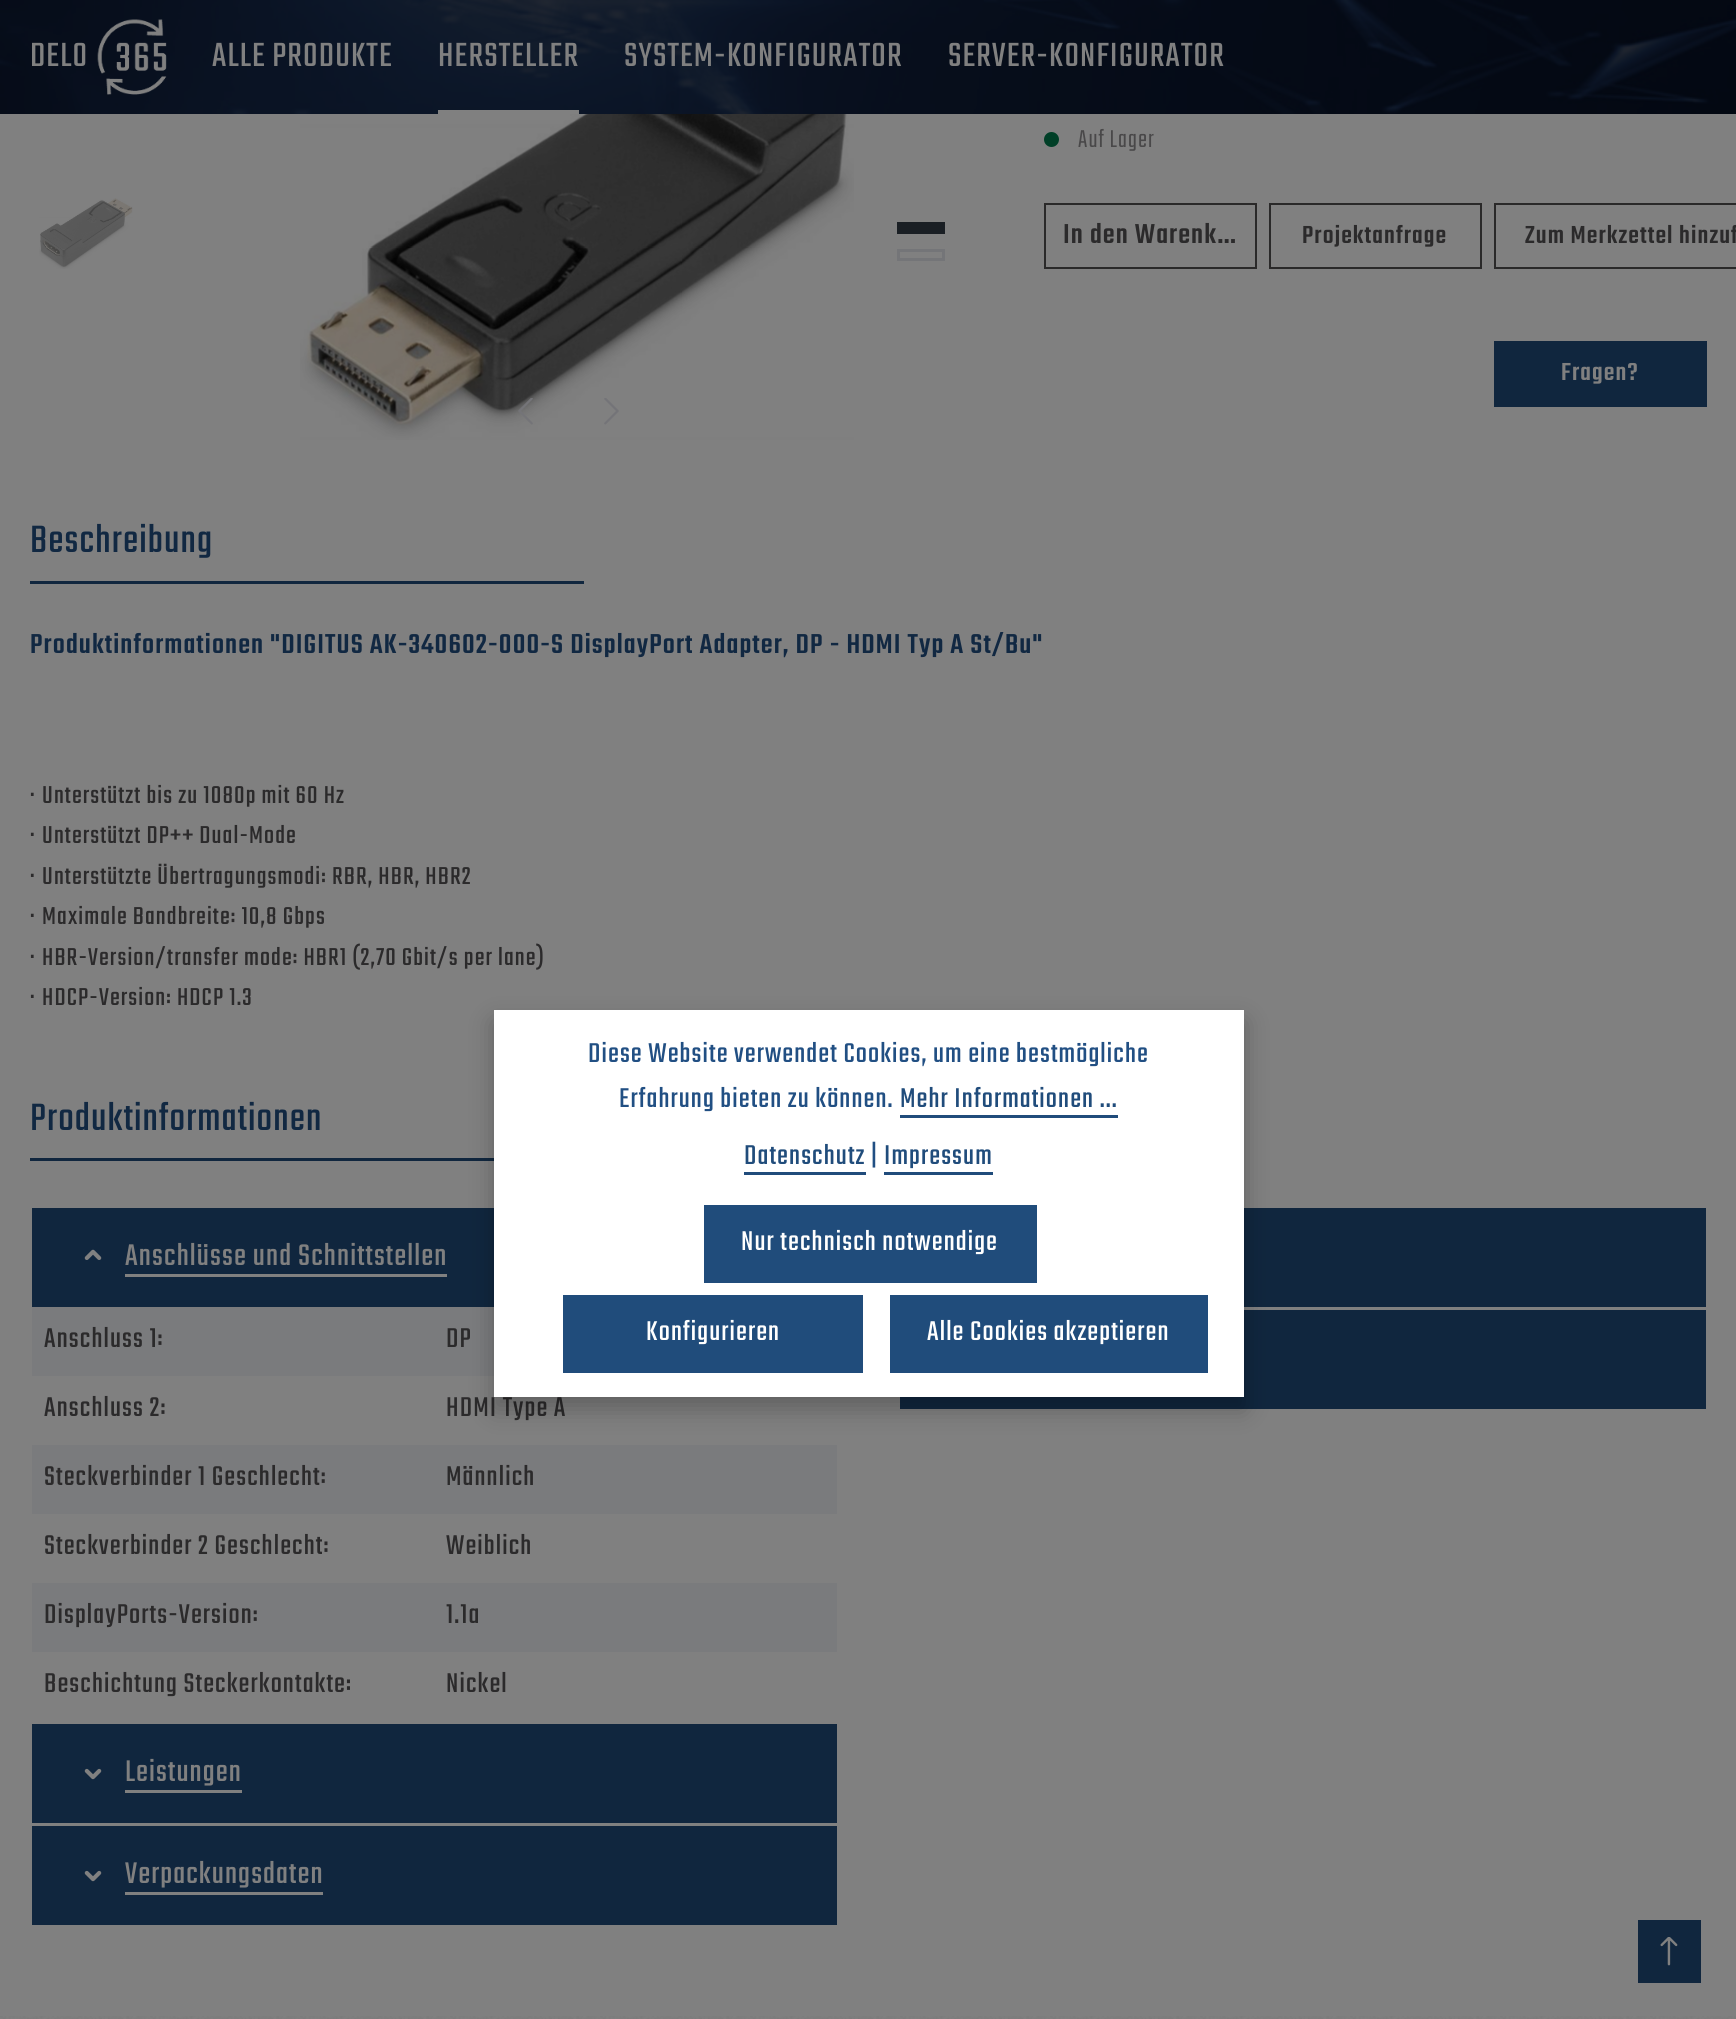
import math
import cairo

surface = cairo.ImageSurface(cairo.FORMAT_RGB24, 1736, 2019)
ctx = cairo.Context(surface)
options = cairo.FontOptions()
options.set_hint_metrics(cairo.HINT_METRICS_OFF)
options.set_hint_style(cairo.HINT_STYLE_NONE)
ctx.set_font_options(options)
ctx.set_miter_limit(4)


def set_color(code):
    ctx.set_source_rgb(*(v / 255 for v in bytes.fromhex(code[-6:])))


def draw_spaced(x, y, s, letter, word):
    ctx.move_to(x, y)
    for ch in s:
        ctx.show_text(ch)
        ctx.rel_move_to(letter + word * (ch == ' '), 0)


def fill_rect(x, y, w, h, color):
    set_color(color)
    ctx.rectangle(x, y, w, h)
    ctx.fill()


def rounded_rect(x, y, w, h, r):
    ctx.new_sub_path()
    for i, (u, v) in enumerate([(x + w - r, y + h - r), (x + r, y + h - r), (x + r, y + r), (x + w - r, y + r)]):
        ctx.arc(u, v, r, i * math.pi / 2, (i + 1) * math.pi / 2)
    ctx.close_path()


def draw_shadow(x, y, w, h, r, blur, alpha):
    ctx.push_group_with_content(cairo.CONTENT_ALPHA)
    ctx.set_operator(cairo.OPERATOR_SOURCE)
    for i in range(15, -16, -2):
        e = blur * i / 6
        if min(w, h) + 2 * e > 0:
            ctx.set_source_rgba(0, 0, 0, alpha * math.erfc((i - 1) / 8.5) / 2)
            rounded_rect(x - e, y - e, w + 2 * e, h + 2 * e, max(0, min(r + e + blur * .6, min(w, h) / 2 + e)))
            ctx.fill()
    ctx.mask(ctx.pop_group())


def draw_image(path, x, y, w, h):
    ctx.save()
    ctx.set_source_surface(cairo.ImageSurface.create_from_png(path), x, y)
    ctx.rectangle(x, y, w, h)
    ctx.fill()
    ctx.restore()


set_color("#808080")
ctx.paint()
draw_image("assets/img1.png", 0, 2016, 1736, 3)
draw_image("assets/img2.png", 0, 0, 1736, 114)
ctx.select_font_face("Teko")
ctx.set_font_size(37)
set_color("#808080")
draw_spaced(30, 66, "DELO", 1.13, 0)
draw_image("assets/img3.png", 97, 19, 70, 76)
draw_spaced(212, 66, "ALLE PRODUKTE", 1.13, 0)
draw_spaced(438, 66, "HERSTELLER", 1.13, 0)
fill_rect(438, 110, 141, 4, "#808080")
draw_spaced(624, 66, "SYSTEM-KONFIGURATOR", 1.13, 0)
draw_spaced(948, 66, "SERVER-KONFIGURATOR", 1.13, 0)
draw_image("assets/img4.png", 39, 198, 94, 71)
draw_image("assets/img5.png", 300, 114, 554, 326)
fill_rect(897, 222, 48, 12, "#1a1f24")
ctx.rectangle(898.5, 250.5, 45, 9)
set_color("#747578")
ctx.set_line_width(3)
ctx.stroke()
draw_image("assets/img6.png", 518, 398, 15, 27)
draw_image("assets/img7.png", 604, 398, 15, 27)
set_color("#003f27")
ctx.arc(1051.5, 139.5, 7.5, 0, 2 * math.pi)
ctx.fill()
ctx.select_font_face("Teko Light")
ctx.set_font_size(27)
set_color("#494849")
draw_spaced(1078, 147, "Auf Lager", 1.13, 0)
ctx.rectangle(1045, 204, 211, 64)
set_color("#2a2929")
ctx.set_line_width(2)
ctx.stroke()
ctx.select_font_face("Teko Medium")
ctx.set_font_size(30)
set_color("#2b2a2b")
draw_spaced(1063, 243, "In den Warenk…", 1.13, 0)
ctx.rectangle(1270, 204, 211, 64)
set_color("#2a2929")
ctx.stroke()
ctx.set_font_size(27)
set_color("#2b2a2b")
draw_spaced(1302, 243, "Projektanfrage", 1.13, 0)
ctx.rectangle(1495, 204, 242, 64)
set_color("#2a2929")
ctx.stroke()
set_color("#2b2a2b")
draw_spaced(1525, 243, "Zum Merkzettel hinzuf", 1.13, 0)
fill_rect(1494, 341, 213, 66, "#10263e")
set_color("#808080")
draw_spaced(1561, 380, "Fragen?", 1.13, 0)
fill_rect(30, 581, 554, 3, "#10263e")
ctx.select_font_face("Teko")
ctx.set_font_size(42)
set_color("#112842")
draw_spaced(30, 552, "Beschreibung", 1.13, 0)
ctx.select_font_face("Teko Medium")
ctx.set_font_size(30)
draw_spaced(30, 653, "Produktinformationen \"DIGITUS AK-340602-000-S DisplayPort Adapter, DP - HDMI Typ A St/Bu\"", 1.13, 0)
ctx.select_font_face("Teko")
ctx.set_font_size(27)
set_color("#2b2a2b")
draw_spaced(30, 803, "· Unterstützt bis zu 1080p mit 60 Hz", 1.13, 0)
draw_spaced(30, 843, "· Unterstützt DP++ Dual-Mode", 1.13, 0)
draw_spaced(30, 884, "· Unterstützte Übertragungsmodi: RBR, HBR, HBR2", 1.13, 0)
draw_spaced(30, 924, "· Maximale Bandbreite: 10,8 Gbps", 1.13, 0)
draw_spaced(30, 965, "· HBR-Version/transfer mode: HBR1 (2,70 Gbit/s per lane)", 1.13, 0)
draw_spaced(30, 1005, "· HDCP-Version: HDCP 1.3", 1.13, 0)
fill_rect(30, 1158, 464, 3, "#10263e")
ctx.set_font_size(42)
set_color("#112842")
draw_spaced(30, 1130, "Produktinformationen", 1.13, 0)
fill_rect(32, 1208, 462, 99, "#10263e")
draw_image("assets/img8.png", 84, 1249, 18, 11)
ctx.set_font_size(33)
set_color("#808080")
draw_spaced(125, 1265, "Anschlüsse und Schnittstellen", 1.13, 0)
fill_rect(125, 1274, 322, 3, "#808080")
fill_rect(32, 1307, 462, 69, "#7a7b7d")
ctx.set_font_size(30)
set_color("#2b2a2b")
draw_spaced(44, 1347, "Anschluss 1:", 1.13, 0)
draw_spaced(446, 1347, "DP", 1.13, 0)
draw_spaced(44, 1416, "Anschluss 2:", 1.13, 0)
draw_spaced(446, 1416, "HDMI Type A", 1.13, 0)
fill_rect(32, 1445, 805, 69, "#7a7b7d")
set_color("#2b2a2b")
draw_spaced(44, 1485, "Steckverbinder 1 Geschlecht:", 1.13, 0)
draw_spaced(446, 1485, "Männlich", 1.13, 0)
draw_spaced(44, 1554, "Steckverbinder 2 Geschlecht:", 1.13, 0)
draw_spaced(446, 1554, "Weiblich", 1.13, 0)
fill_rect(32, 1583, 805, 69, "#7a7b7d")
set_color("#2b2a2b")
draw_spaced(44, 1623, "DisplayPorts-Version:", 1.13, 0)
draw_spaced(446, 1623, "1.1a", 1.13, 0)
draw_spaced(44, 1692, "Beschichtung Steckerkontakte:", 1.13, 0)
draw_spaced(446, 1692, "Nickel", 1.13, 0)
fill_rect(32, 1724, 805, 99, "#10263e")
draw_image("assets/img9.png", 84, 1768, 18, 12)
ctx.set_font_size(33)
set_color("#808080")
draw_spaced(125, 1781, "Leistungen", 1.13, 0)
fill_rect(125, 1790, 117, 3, "#808080")
fill_rect(32, 1826, 805, 99, "#10263e")
draw_image("assets/img9.png", 84, 1870, 18, 12)
set_color("#808080")
draw_spaced(125, 1883, "Verpackungsdaten", 1.13, 0)
fill_rect(125, 1892, 198, 3, "#808080")
fill_rect(1244, 1208, 462, 99, "#10263e")
fill_rect(900, 1310, 806, 99, "#10263e")
set_color("#000000")
draw_shadow(494, 1022, 750, 387, 0, 12, 0.25)
fill_rect(494, 1010, 750, 387, "#ffffff")
ctx.set_font_size(30)
set_color("#214f83")
draw_spaced(588, 1062, "Diese Website verwendet Cookies, um eine bestmögliche", 1.13, 0)
draw_spaced(619, 1107, "Erfahrung bieten zu können.", 1.13, 0)
set_color("#204c7b")
draw_spaced(900, 1107, "Mehr Informationen ...", 1.13, 0)
fill_rect(900, 1115, 218, 3, "#204c7b")
draw_spaced(744, 1164, "Datenschutz", 1.13, 0)
fill_rect(744, 1172, 122, 3, "#204c7b")
set_color("#214f83")
draw_spaced(871, 1164, "|", 1.13, 0)
set_color("#204c7b")
draw_spaced(884, 1164, "Impressum", 1.13, 0)
fill_rect(884, 1172, 109, 3, "#204c7b")
fill_rect(704, 1205, 333, 78, "#204c7b")
set_color("#ffffff")
draw_spaced(741, 1250, "Nur technisch notwendige", 1.13, 0)
fill_rect(563, 1295, 300, 78, "#204c7b")
set_color("#ffffff")
draw_spaced(646, 1340, "Konfigurieren", 1.13, 0)
fill_rect(890, 1295, 318, 78, "#204c7b")
set_color("#ffffff")
draw_spaced(927, 1340, "Alle Cookies akzeptieren", 1.13, 0)
fill_rect(1638, 1920, 63, 63, "#10263e")
draw_image("assets/img10.png", 1660, 1937, 18, 29)
surface.write_to_png("output.png")
